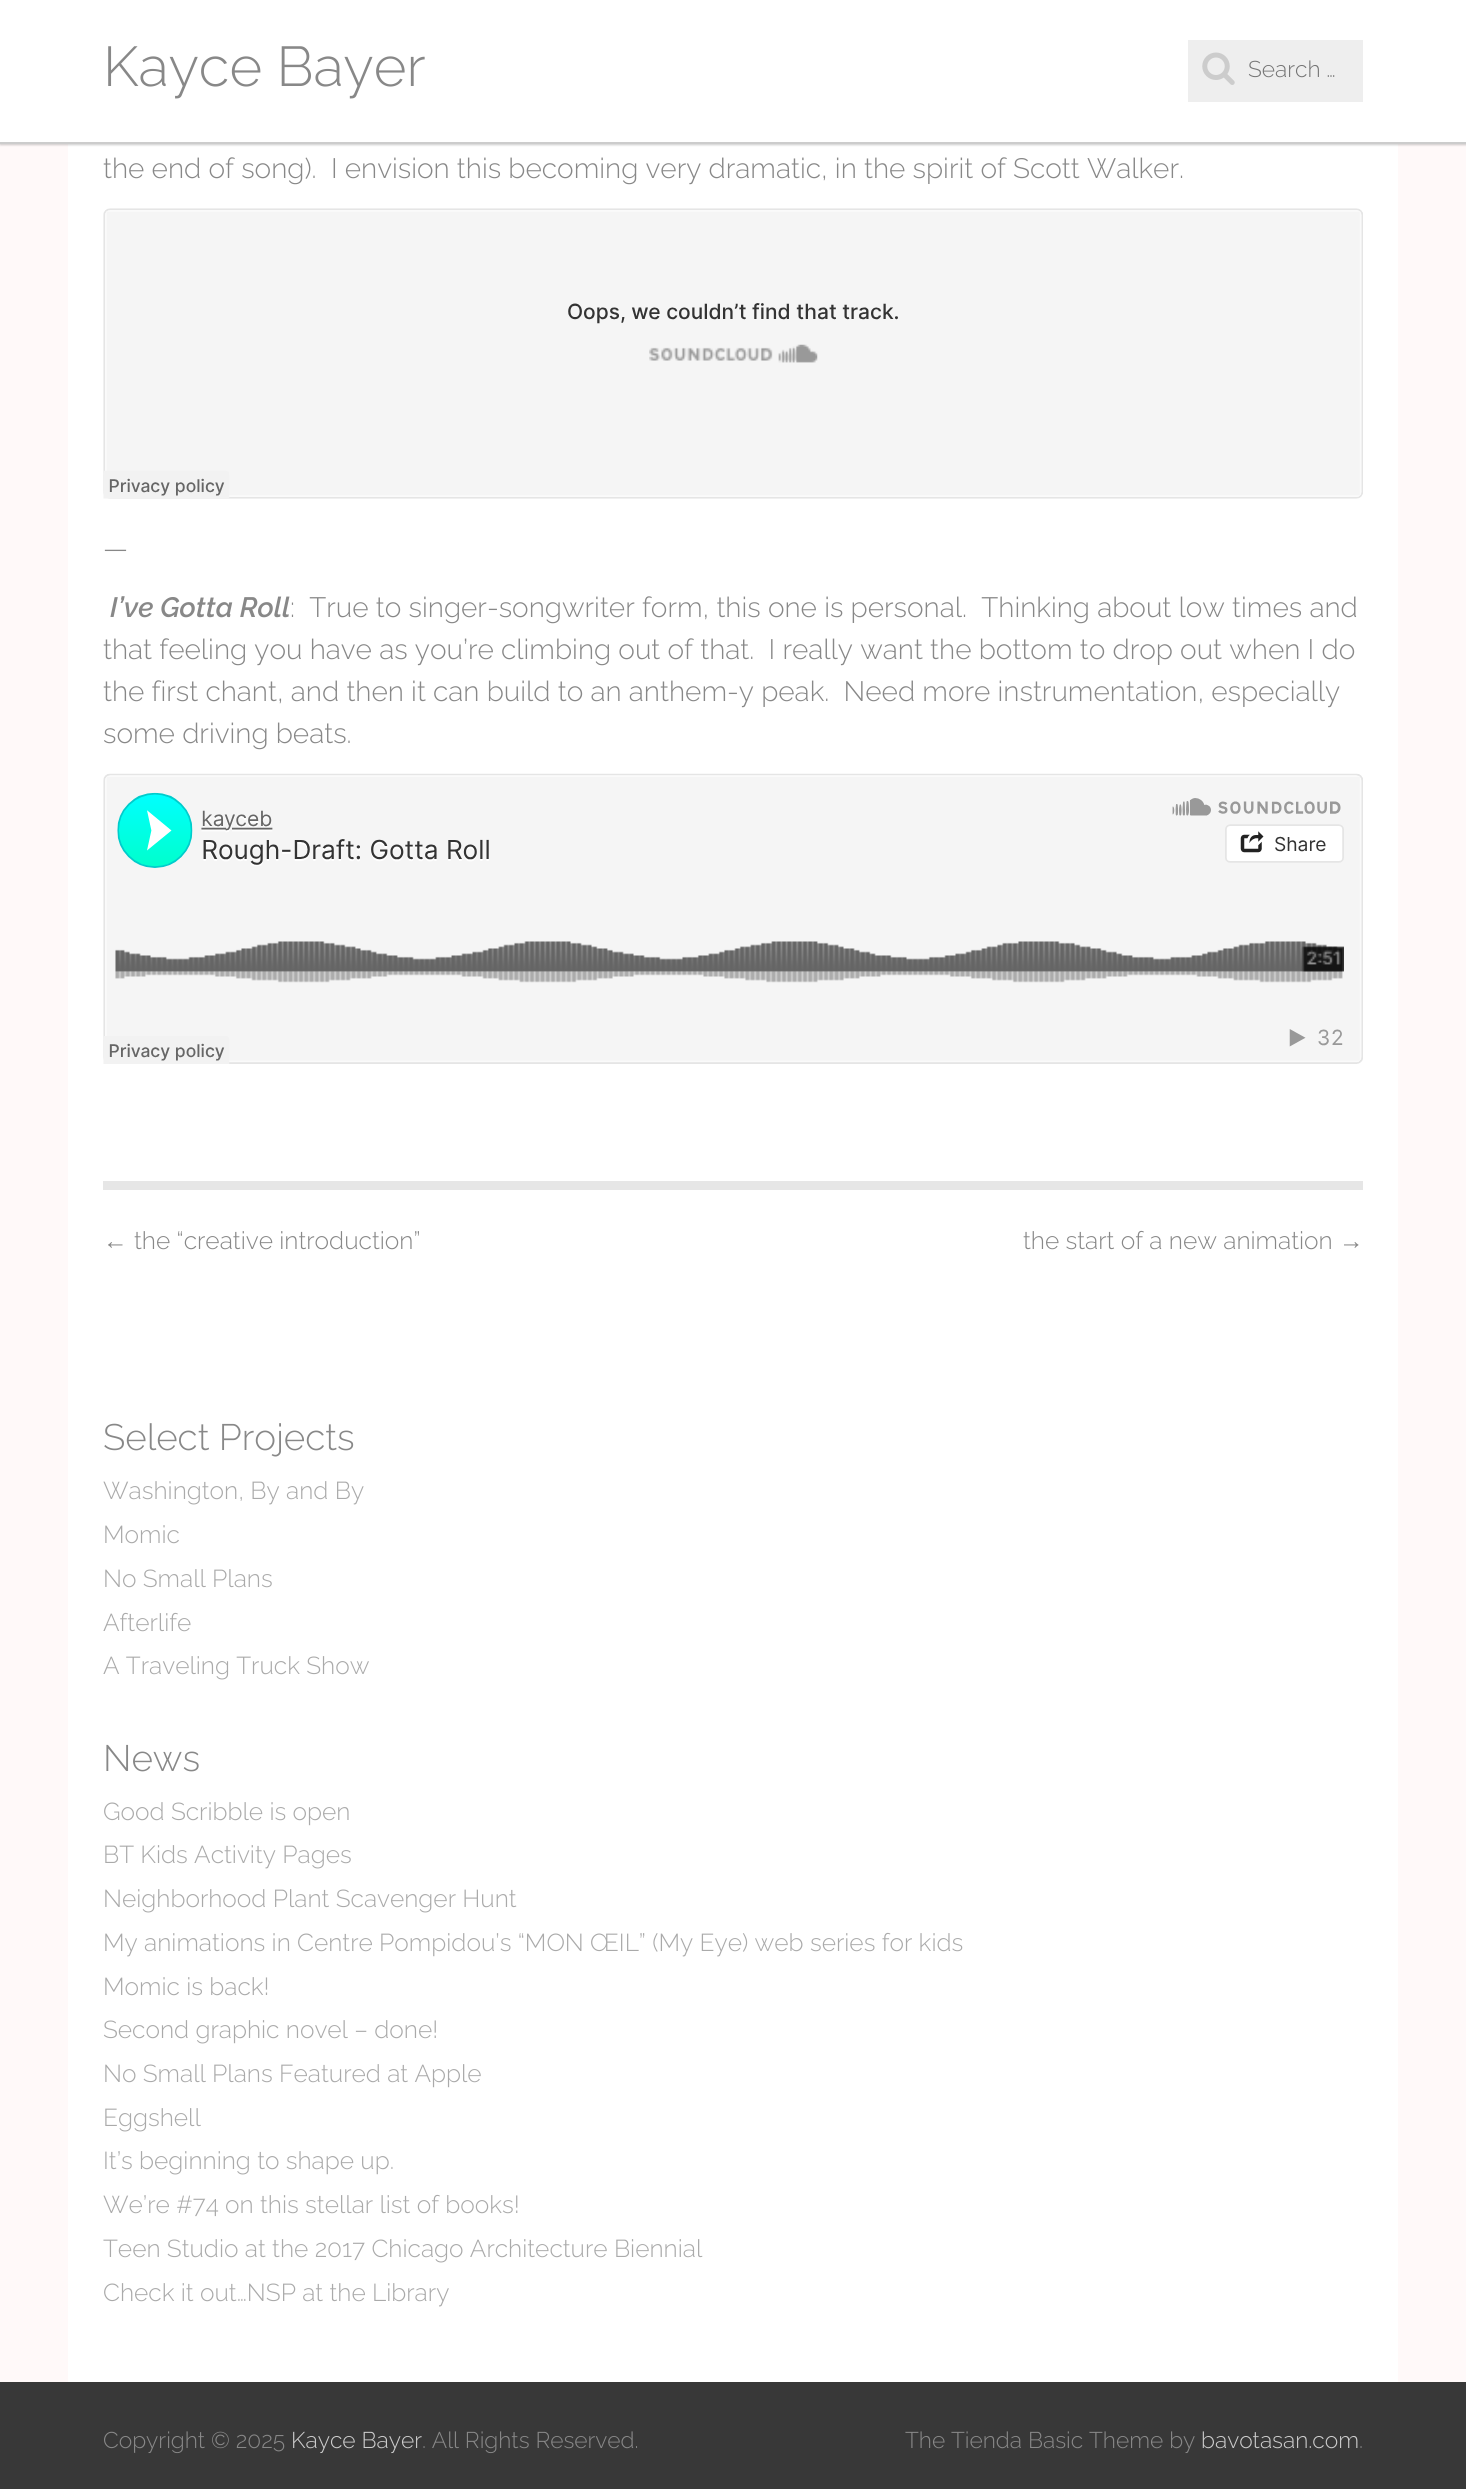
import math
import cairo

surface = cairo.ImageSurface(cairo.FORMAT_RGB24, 1466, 2489)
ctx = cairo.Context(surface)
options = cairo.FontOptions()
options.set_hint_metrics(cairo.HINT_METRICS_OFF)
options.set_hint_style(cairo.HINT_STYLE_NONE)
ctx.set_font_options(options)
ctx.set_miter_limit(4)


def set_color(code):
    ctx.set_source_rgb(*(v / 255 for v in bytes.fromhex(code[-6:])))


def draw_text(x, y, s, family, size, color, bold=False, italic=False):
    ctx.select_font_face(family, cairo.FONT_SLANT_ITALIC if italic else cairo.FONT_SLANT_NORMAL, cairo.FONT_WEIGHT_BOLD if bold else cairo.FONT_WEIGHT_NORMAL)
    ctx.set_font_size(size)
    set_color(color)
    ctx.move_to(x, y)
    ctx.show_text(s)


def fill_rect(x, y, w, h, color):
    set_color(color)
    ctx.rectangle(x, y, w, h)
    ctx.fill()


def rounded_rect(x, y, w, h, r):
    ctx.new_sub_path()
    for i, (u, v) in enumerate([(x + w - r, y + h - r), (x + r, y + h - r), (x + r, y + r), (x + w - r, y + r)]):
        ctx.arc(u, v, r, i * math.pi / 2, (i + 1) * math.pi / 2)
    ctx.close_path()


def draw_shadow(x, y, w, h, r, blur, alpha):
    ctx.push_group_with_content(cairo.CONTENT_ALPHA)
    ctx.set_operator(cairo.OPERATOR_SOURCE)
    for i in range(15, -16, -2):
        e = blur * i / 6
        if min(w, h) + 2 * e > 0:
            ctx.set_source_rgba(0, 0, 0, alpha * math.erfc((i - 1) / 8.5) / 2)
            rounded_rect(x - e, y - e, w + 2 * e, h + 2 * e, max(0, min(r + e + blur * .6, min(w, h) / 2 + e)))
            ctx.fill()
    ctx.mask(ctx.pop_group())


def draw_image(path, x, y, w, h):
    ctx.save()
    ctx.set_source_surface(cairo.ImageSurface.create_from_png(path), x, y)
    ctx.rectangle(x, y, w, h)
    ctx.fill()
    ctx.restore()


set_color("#fff9f9")
ctx.paint()
fill_rect(68, 144, 1330, 2238, "#ffffff")
set_color("#000000")
draw_shadow(0, 2, 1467, 143, 0, 1, 0.2)
fill_rect(0, 0, 1466, 142, "#ffffff")
fill_rect(0, 142, 1466, 2, "#cccccc")
draw_text(103, 86, "Kayce Bayer", "Raleway Light", 56, "#888888")
fill_rect(1188, 40, 175, 62, "#eeeeee")
draw_image("assets/img1.png", 1202, 52, 33, 33)
draw_text(1248, 77, "Search …", "Raleway Light", 22.75, "#757575")
draw_text(103, 178, "the end of song).  I envision this becoming very dramatic, in the spirit of Scott Walker.", "Raleway Light", 28, "#888888")
draw_image("assets/img2.png", 103, 208, 1260, 291)
draw_text(103, 558, "—", "Raleway Light", 28, "#888888")
draw_text(110, 617, "I’ve Gotta Roll", "Raleway SemiBold", 28, "#888888", italic=True)
draw_text(290, 617, ":  True to singer-songwriter form, this one is personal.  Thinking about low times and", "Raleway Light", 28, "#888888")
draw_text(103, 659, "that feeling you have as you’re climbing out of that.  I really want the bottom to drop out when I do", "Raleway Light", 28, "#888888")
draw_text(103, 701, "the first chant, and then it can build to an anthem-y peak.  Need more instrumentation, especially", "Raleway Light", 28, "#888888")
draw_text(103, 743, "some driving beats.", "Raleway Light", 28, "#888888")
draw_image("assets/img3.png", 103, 773, 1260, 291)
fill_rect(103, 1181, 1260, 9, "#e6e6e6")
draw_text(103, 1249, "←", "Liberation Sans", 24.5, "#888888")
draw_text(134, 1249, "the “creative introduction”", "Raleway Light", 24.5, "#888888")
draw_text(1023, 1249, "the start of a new animation", "Raleway Light", 24.5, "#888888")
draw_text(1339, 1249, "→", "Liberation Sans", 24.5, "#888888")
draw_text(103, 1450, "Select Projects", "Raleway Light", 36.75, "#888888")
draw_text(103, 1499, "Washington, By and By", "Raleway Light", 24.5, "#aaaaaa")
draw_text(103, 1543, "Momic", "Raleway Light", 24.5, "#aaaaaa")
draw_text(103, 1587, "No Small Plans", "Raleway Light", 24.5, "#aaaaaa")
draw_text(103, 1631, "Afterlife", "Raleway Light", 24.5, "#aaaaaa")
draw_text(103, 1674, "A Traveling Truck Show", "Raleway Light", 24.5, "#aaaaaa")
draw_text(103, 1771, "News", "Raleway Light", 36.75, "#888888")
draw_text(103, 1820, "Good Scribble is open", "Raleway Light", 24.5, "#aaaaaa")
draw_text(103, 1863, "BT Kids Activity Pages", "Raleway Light", 24.5, "#aaaaaa")
draw_text(103, 1907, "Neighborhood Plant Scavenger Hunt", "Raleway Light", 24.5, "#aaaaaa")
draw_text(103, 1951, "My animations in Centre Pompidou’s “MON ŒIL” (My Eye) web series for kids", "Raleway Light", 24.5, "#aaaaaa")
draw_text(103, 1995, "Momic is back!", "Raleway Light", 24.5, "#aaaaaa")
draw_text(103, 2038, "Second graphic novel – done!", "Raleway Light", 24.5, "#aaaaaa")
draw_text(103, 2082, "No Small Plans Featured at Apple", "Raleway Light", 24.5, "#aaaaaa")
draw_text(103, 2126, "Eggshell", "Raleway Light", 24.5, "#aaaaaa")
draw_text(103, 2169, "It’s beginning to shape up.", "Raleway Light", 24.5, "#aaaaaa")
draw_text(103, 2213, "We’re #74 on this stellar list of books!", "Raleway Light", 24.5, "#aaaaaa")
draw_text(103, 2257, "Teen Studio at the 2017 Chicago Architecture Biennial", "Raleway Light", 24.5, "#aaaaaa")
draw_text(103, 2301, "Check it out…NSP at the Library", "Raleway Light", 24.5, "#aaaaaa")
fill_rect(0, 2382, 1466, 107, "#383838")
draw_text(103, 2448, "Copyright © 2025", "Raleway Light", 22.75, "#888888")
draw_text(291, 2448, "Kayce Bayer", "Raleway Light", 22.75, "#cccccc")
draw_text(422, 2448, ". All Rights Reserved.", "Raleway Light", 22.75, "#888888")
draw_text(905, 2448, "The Tienda Basic Theme by", "Raleway Light", 22.75, "#888888")
draw_text(1201, 2448, "bavotasan.com", "Raleway Light", 22.75, "#cccccc")
draw_text(1359, 2448, ".", "Raleway Light", 22.75, "#888888")
surface.write_to_png("output.png")
